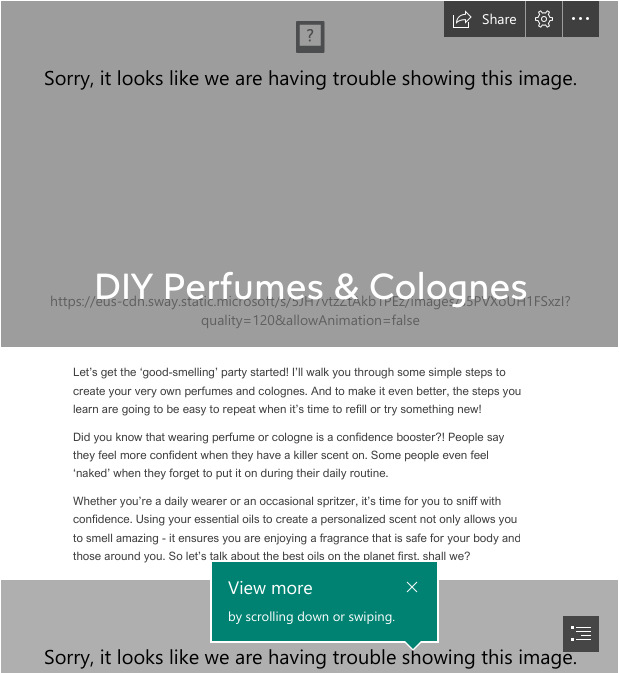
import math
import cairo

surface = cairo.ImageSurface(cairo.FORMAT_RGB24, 619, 673)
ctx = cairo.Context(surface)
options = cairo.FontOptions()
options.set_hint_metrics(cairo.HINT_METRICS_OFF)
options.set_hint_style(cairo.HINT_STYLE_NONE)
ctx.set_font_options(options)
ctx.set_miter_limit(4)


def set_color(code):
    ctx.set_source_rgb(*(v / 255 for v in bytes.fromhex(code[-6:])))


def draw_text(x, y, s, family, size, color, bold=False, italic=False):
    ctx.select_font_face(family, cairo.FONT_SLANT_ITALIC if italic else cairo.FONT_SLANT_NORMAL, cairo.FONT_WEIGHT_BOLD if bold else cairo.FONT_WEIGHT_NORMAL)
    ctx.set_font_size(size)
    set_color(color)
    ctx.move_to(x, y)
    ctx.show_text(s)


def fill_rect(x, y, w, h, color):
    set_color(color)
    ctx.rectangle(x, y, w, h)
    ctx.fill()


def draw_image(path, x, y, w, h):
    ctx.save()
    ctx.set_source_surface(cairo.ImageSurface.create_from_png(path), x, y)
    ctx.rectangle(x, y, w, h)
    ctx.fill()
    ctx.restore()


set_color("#ffffff")
ctx.paint()
fill_rect(1, 1, 617, 346, "#9d9d9d")
fill_rect(444, 1, 81, 36, "#3f3f3f")
draw_image("assets/img1.png", 453, 10, 19, 18)
draw_text(482, 24, "Share", "Segoe UI", 14, "#ffffff")
fill_rect(526, 1, 36, 36, "#3f3f3f")
draw_image("assets/img2.png", 535, 10, 18, 18)
fill_rect(563, 1, 36, 36, "#3f3f3f")
draw_image("assets/img3.png", 572, 17, 17, 3)
draw_image("assets/img4.png", 296, 21, 29, 32)
draw_text(44, 85, "Sorry, it looks like we are having trouble showing this image.", "Segoe UI", 20, "#000000")
draw_text(50, 306, "https://eus-cdn.sway.static.microsoft/s/5JH7vtzZtAkb1PEz/images/s5PVXoUH1FSxzI?", "Segoe UI", 14, "#5f5f5f")
draw_text(201, 325, "quality=120&allowAnimation=false", "Segoe UI", 14, "#5f5f5f")
draw_text(94, 299, "DIY Perfumes & Colognes", "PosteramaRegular", 36.25, "#ffffff")
draw_text(73, 376, "Let’s get the ‘good-smelling’ party started! I’ll walk you through some simple steps to", "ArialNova", 11.6, "#403f41")
draw_text(73, 395, "create your very own perfumes and colognes. And to make it even better, the steps you", "ArialNova", 11.6, "#403f41")
draw_text(73, 413, "learn are going to be easy to repeat when it’s time to refill or try something new!", "ArialNova", 11.6, "#403f41")
draw_text(73, 441, "Did you know that wearing perfume or cologne is a confidence booster?! People say", "ArialNova", 11.6, "#403f41")
draw_text(73, 459, "they feel more confident when they have a killer scent on. Some people even feel", "ArialNova", 11.6, "#403f41")
draw_text(73, 477, "‘naked’ when they forget to put it on during their daily routine.", "ArialNova", 11.6, "#403f41")
draw_text(73, 505, "Whether you’re a daily wearer or an occasional spritzer, it’s time for you to sniff with", "ArialNova", 11.6, "#403f41")
draw_text(73, 523, "confidence. Using your essential oils to create a personalized scent not only allows you", "ArialNova", 11.6, "#403f41")
draw_text(73, 542, "to smell amazing - it ensures you are enjoying a fragrance that is safe for your body and", "ArialNova", 11.6, "#403f41")
draw_text(73, 560, "those around you. So let’s talk about the best oils on the planet first, shall we?", "ArialNova", 11.6, "#403f41")
fill_rect(1, 580, 617, 93, "#afafaf")
draw_text(44, 664, "Sorry, it looks like we are having trouble showing this image.", "Segoe UI", 20, "#000000")
set_color("#008272")
ctx.rectangle(211, 561, 227, 81)
ctx.fill_preserve()
set_color("#ffffff")
ctx.stroke()
draw_text(228, 594, "View more", "Segoe UI", 18, "#ffffff")
draw_text(228, 621, "by scrolling down or swiping.", "Segoe UI", 13, "#ffffff")
draw_image("assets/img5.png", 406, 581, 12, 12)
ctx.new_path()
ctx.move_to(403, 641)
ctx.line_to(423, 641)
ctx.line_to(413, 651)
ctx.close_path()
ctx.fill()
set_color("#008272")
ctx.new_path()
ctx.move_to(405, 641)
ctx.line_to(421, 641)
ctx.line_to(413, 649)
ctx.close_path()
ctx.fill()
fill_rect(563, 616, 36, 36, "#464646")
draw_image("assets/img6.png", 571, 626, 20, 15)
surface.write_to_png("output.png")
